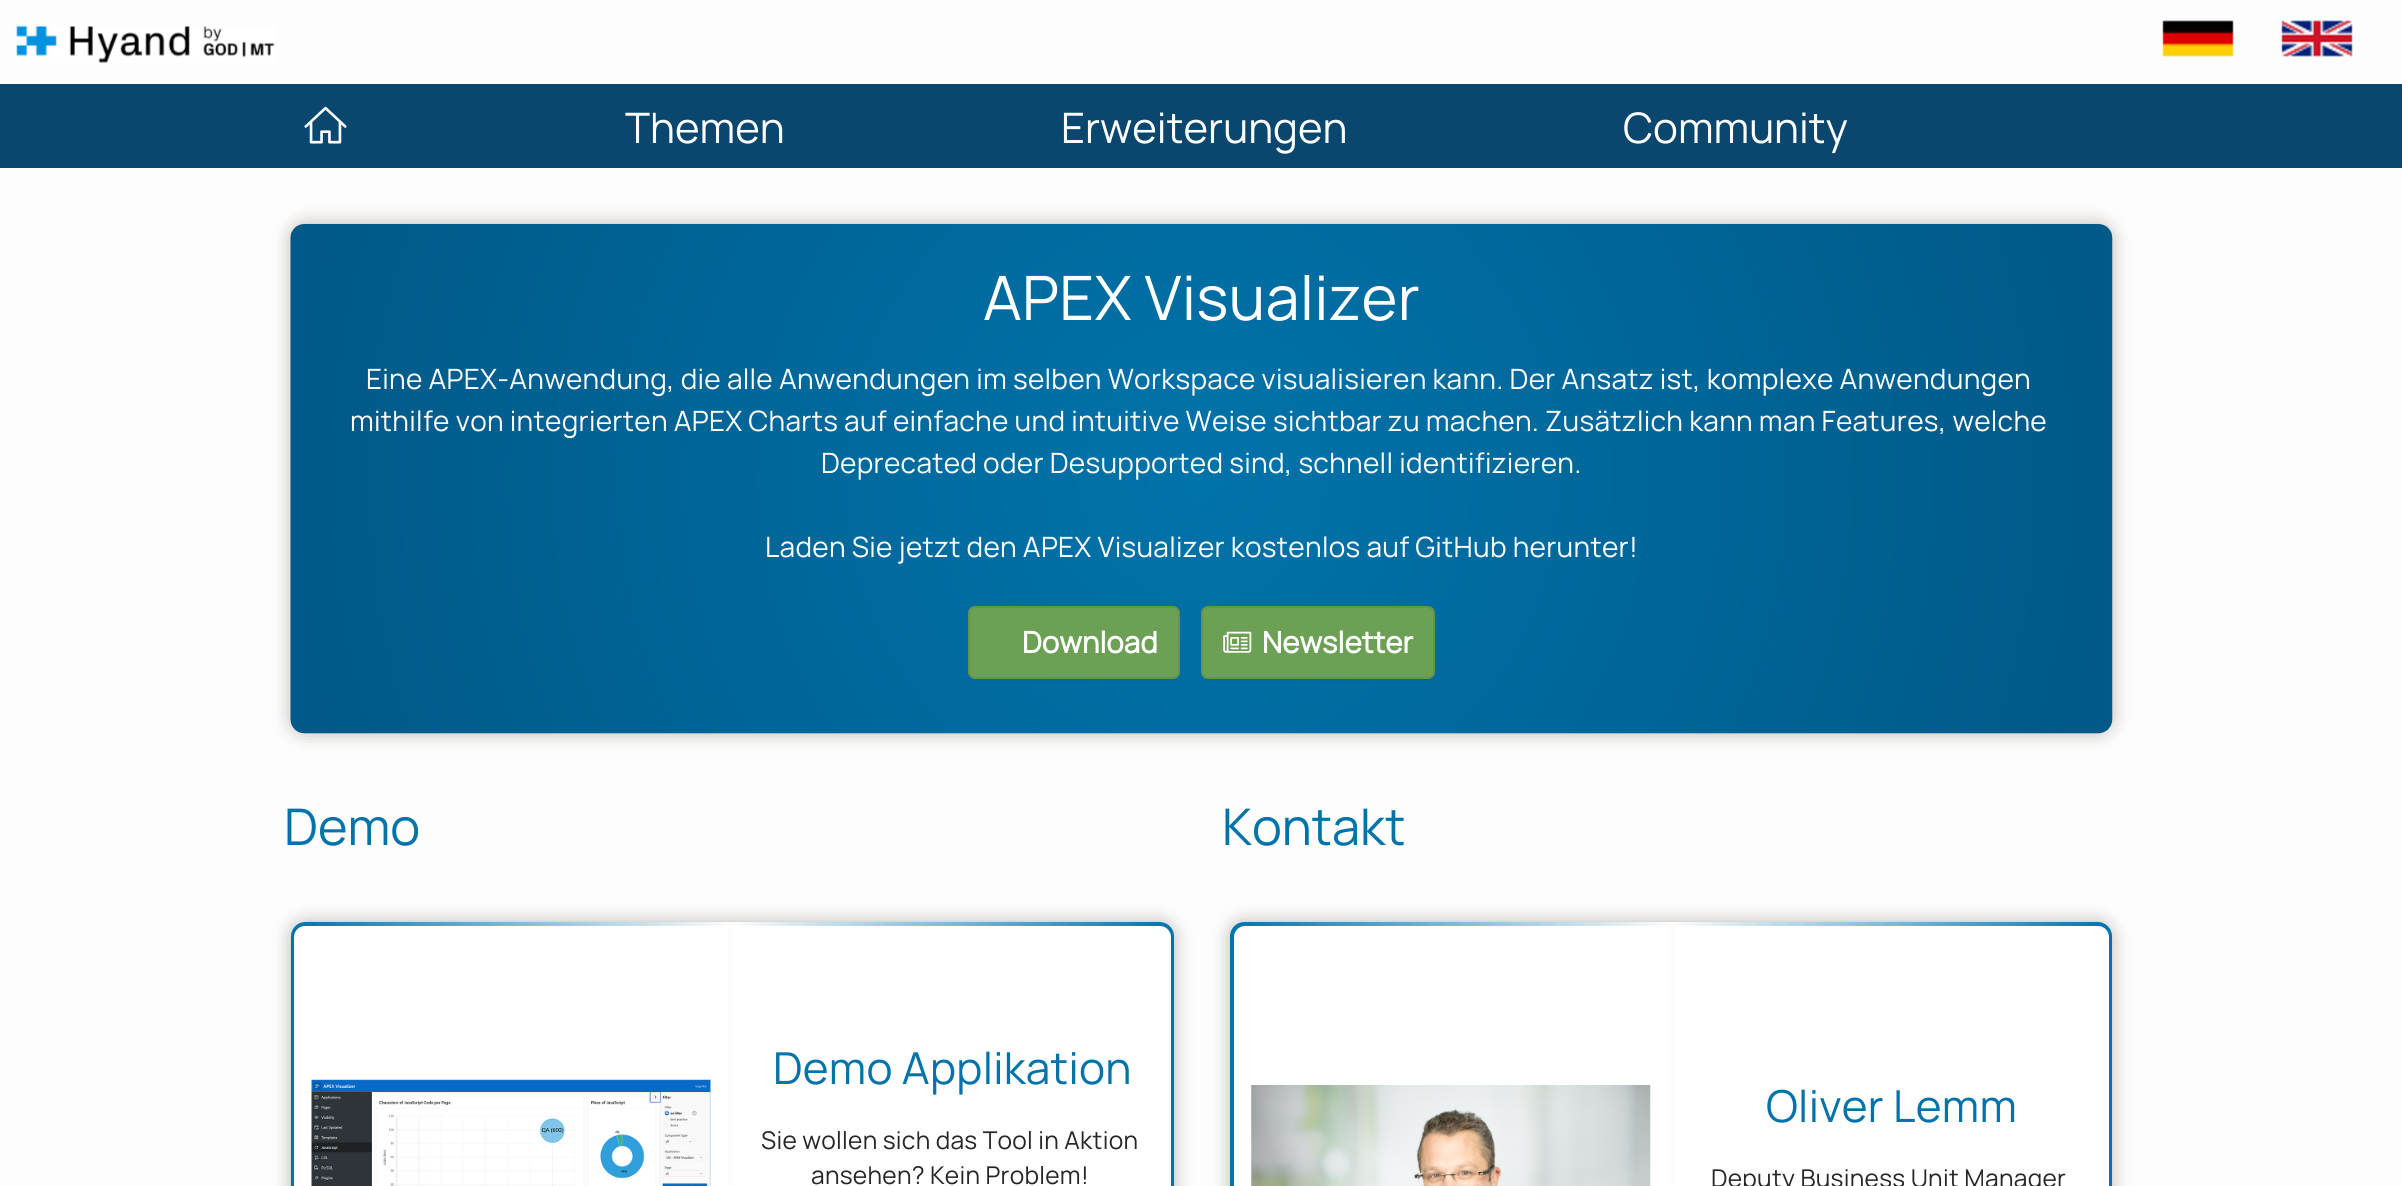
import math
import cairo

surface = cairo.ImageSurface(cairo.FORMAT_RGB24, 2402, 1186)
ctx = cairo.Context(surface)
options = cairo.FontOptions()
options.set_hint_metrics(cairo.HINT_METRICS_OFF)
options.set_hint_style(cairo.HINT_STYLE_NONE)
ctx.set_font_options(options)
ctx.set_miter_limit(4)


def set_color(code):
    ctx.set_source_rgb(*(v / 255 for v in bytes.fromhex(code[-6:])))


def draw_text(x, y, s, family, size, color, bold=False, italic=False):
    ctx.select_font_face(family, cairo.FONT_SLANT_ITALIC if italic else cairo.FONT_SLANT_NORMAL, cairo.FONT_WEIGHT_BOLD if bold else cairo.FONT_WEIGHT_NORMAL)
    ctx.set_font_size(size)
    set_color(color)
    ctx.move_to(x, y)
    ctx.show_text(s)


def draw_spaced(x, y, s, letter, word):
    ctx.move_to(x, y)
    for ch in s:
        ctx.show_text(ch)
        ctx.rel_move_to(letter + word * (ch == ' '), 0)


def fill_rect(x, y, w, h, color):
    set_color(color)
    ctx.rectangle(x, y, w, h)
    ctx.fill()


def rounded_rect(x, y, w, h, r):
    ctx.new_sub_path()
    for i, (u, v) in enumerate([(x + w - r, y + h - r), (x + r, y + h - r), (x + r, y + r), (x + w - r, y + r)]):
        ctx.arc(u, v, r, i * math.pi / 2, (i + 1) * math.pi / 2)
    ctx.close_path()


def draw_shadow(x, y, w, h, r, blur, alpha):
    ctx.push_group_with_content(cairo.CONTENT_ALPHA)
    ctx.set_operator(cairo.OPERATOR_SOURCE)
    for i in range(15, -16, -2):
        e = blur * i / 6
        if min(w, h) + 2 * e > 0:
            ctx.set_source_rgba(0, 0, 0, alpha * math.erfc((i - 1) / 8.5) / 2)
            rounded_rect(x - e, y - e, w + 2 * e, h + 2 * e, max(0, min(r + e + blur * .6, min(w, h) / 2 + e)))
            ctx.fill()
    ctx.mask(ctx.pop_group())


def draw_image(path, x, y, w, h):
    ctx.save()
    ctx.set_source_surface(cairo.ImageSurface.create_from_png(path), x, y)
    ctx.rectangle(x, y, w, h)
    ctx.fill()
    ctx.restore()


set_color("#fdfdfd")
ctx.paint()
draw_image("assets/img1.png", 15, 26, 260, 37)
draw_image("assets/img2.png", 2162, 20, 72, 37)
draw_image("assets/img3.png", 2281, 20, 72, 37)
fill_rect(0, 84, 2402, 84, "#09476e")
draw_image("assets/img4.png", 304, 106, 43, 38)
draw_text(625, 143, "Themen", "Manrope", 42, "#ffffff")
draw_text(1061, 143, "Erweiterungen", "Manrope", 42, "#ffffff")
draw_text(1623, 143, "Community", "Manrope", 42, "#ffffff")
set_color("#b9b5b0")
draw_shadow(291, 224, 1821, 509, 14, 9, 1)
draw_image("assets/img5.png", 290, 224, 1823, 510)
ctx.set_font_size(61.25)
set_color("#ffffff")
draw_spaced(983, 320, "APEX Visualizer", 0.28, 0)
ctx.set_font_size(28)
draw_spaced(366, 389, "Eine APEX-Anwendung, die alle Anwendungen im selben Workspace visualisieren kann. Der Ansatz ist, komplexe Anwendungen", 0.28, 0)
draw_spaced(350, 431, "mithilfe von integrierten APEX Charts auf einfache und intuitive Weise sichtbar zu machen. Zusätzlich kann man Features, welche", 0.28, 0)
draw_spaced(821, 473, "Deprecated oder Desupported sind, schnell identifizieren.", 0.28, 0)
draw_spaced(765, 557, "Laden Sie jetzt den APEX Visualizer kostenlos auf GitHub herunter!", 0.28, 0)
set_color("#000000")
draw_shadow(973, 614, 201, 63, 2, 3.5, 0.1)
set_color("#6ba055")
rounded_rect(968, 606, 212, 73, 7)
ctx.fill()
rounded_rect(969, 607, 210, 71, 6)
ctx.set_source_rgba(0, 0, 0, 0.07)
ctx.stroke()
draw_text(1022, 653, "Download", "Manrope", 29.5, "#ffffff", bold=True)
set_color("#000000")
draw_shadow(1206, 614, 224, 63, 2, 3.5, 0.1)
set_color("#6ba055")
rounded_rect(1201, 606, 234, 73, 7)
ctx.fill()
rounded_rect(1202, 607, 232, 71, 6)
ctx.set_source_rgba(0, 0, 0, 0.07)
ctx.stroke()
draw_image("assets/img6.png", 1223, 631, 29, 22)
draw_text(1262, 653, "Newsletter", "Manrope", 29.5, "#ffffff", bold=True)
draw_text(284, 845, "Demo", "Manrope", 50.5, "#0073aa")
ctx.save()
ctx.set_fill_rule(cairo.FILL_RULE_EVEN_ODD)
ctx.new_path()
ctx.move_to(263, 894)
ctx.line_to(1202, 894)
ctx.line_to(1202, 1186)
ctx.line_to(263, 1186)
ctx.close_path()
ctx.move_to(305, 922)
ctx.line_to(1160, 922)
ctx.curve_to(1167.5, 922, 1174, 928.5, 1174, 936)
ctx.line_to(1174, 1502)
ctx.curve_to(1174, 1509.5, 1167.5, 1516, 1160, 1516)
ctx.line_to(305, 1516)
ctx.curve_to(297.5, 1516, 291, 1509.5, 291, 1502)
ctx.line_to(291, 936)
ctx.curve_to(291, 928.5, 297.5, 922, 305, 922)
ctx.close_path()
ctx.clip()
set_color("#b9b5b0")
draw_shadow(291, 922, 883, 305, 14, 9, 1)
ctx.restore()
gradient = cairo.LinearGradient(291, 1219, 732, 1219)
gradient.add_color_stop_rgba(0, 0, 0.451, 0.667, 1)
gradient.add_color_stop_rgba(1, 0, 0.451, 0.667, 0)
ctx.set_source(gradient)
ctx.new_path()
ctx.move_to(305, 922)
ctx.line_to(732, 922)
ctx.line_to(732, 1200)
ctx.line_to(305, 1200)
ctx.curve_to(297.5, 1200, 291, 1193.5, 291, 1186)
ctx.line_to(291, 936)
ctx.curve_to(291, 928.5, 297.5, 922, 305, 922)
ctx.close_path()
ctx.fill()
set_color("#ffffff")
ctx.new_path()
ctx.move_to(305, 926)
ctx.line_to(728, 926)
ctx.line_to(728, 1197)
ctx.line_to(305, 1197)
ctx.curve_to(299, 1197, 294, 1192, 294, 1186)
ctx.line_to(294, 937)
ctx.curve_to(294, 931, 299, 926, 305, 926)
ctx.close_path()
ctx.fill()
draw_image("assets/img7.png", 311, 1079, 400, 107)
gradient = cairo.LinearGradient(1174, 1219, 732, 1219)
gradient.add_color_stop_rgba(0, 0, 0.451, 0.667, 1)
gradient.add_color_stop_rgba(1, 0, 0.451, 0.667, 0)
ctx.set_source(gradient)
ctx.new_path()
ctx.move_to(732, 922)
ctx.line_to(1160, 922)
ctx.curve_to(1167.5, 922, 1174, 928.5, 1174, 936)
ctx.line_to(1174, 1186)
ctx.curve_to(1174, 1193.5, 1167.5, 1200, 1160, 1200)
ctx.line_to(732, 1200)
ctx.close_path()
ctx.fill()
set_color("#ffffff")
ctx.new_path()
ctx.move_to(735, 926)
ctx.line_to(1160, 926)
ctx.curve_to(1166, 926, 1171, 931, 1171, 937)
ctx.line_to(1171, 1186)
ctx.curve_to(1171, 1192, 1166, 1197, 1160, 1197)
ctx.line_to(735, 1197)
ctx.close_path()
ctx.fill()
ctx.set_font_size(44)
set_color("#0073aa")
draw_spaced(773, 1084, "Demo Applikation", 0.28, 0)
ctx.set_font_size(24.5)
set_color("#262626")
draw_spaced(761, 1149, "Sie wollen sich das Tool in Aktion", 0.28, 0)
draw_spaced(811, 1184, "ansehen? Kein Problem!", 0.28, 0)
draw_text(1222, 845, "Kontakt", "Manrope", 50.5, "#0073aa")
ctx.save()
ctx.set_fill_rule(cairo.FILL_RULE_EVEN_ODD)
ctx.new_path()
ctx.move_to(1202, 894)
ctx.line_to(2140, 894)
ctx.line_to(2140, 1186)
ctx.line_to(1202, 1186)
ctx.close_path()
ctx.move_to(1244, 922)
ctx.line_to(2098, 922)
ctx.curve_to(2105.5, 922, 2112, 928.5, 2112, 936)
ctx.line_to(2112, 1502)
ctx.curve_to(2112, 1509.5, 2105.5, 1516, 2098, 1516)
ctx.line_to(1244, 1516)
ctx.curve_to(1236.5, 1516, 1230, 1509.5, 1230, 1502)
ctx.line_to(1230, 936)
ctx.curve_to(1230, 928.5, 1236.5, 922, 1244, 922)
ctx.close_path()
ctx.clip()
set_color("#b9b5b0")
draw_shadow(1230, 922, 882, 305, 14, 9, 1)
ctx.restore()
gradient = cairo.LinearGradient(1230, 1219, 1671, 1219)
gradient.add_color_stop_rgba(0, 0, 0.451, 0.667, 1)
gradient.add_color_stop_rgba(1, 0, 0.451, 0.667, 0)
ctx.set_source(gradient)
ctx.new_path()
ctx.move_to(1244, 922)
ctx.line_to(1671, 922)
ctx.line_to(1671, 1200)
ctx.line_to(1244, 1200)
ctx.curve_to(1236.5, 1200, 1230, 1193.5, 1230, 1186)
ctx.line_to(1230, 936)
ctx.curve_to(1230, 928.5, 1236.5, 922, 1244, 922)
ctx.close_path()
ctx.fill()
set_color("#ffffff")
ctx.new_path()
ctx.move_to(1245, 926)
ctx.line_to(1668, 926)
ctx.line_to(1668, 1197)
ctx.line_to(1245, 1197)
ctx.curve_to(1239, 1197, 1234, 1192, 1234, 1186)
ctx.line_to(1234, 937)
ctx.curve_to(1234, 931, 1239, 926, 1245, 926)
ctx.close_path()
ctx.fill()
draw_image("assets/img8.png", 1251, 1085, 400, 101)
gradient = cairo.LinearGradient(2112, 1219, 1671, 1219)
gradient.add_color_stop_rgba(0, 0, 0.451, 0.667, 1)
gradient.add_color_stop_rgba(1, 0, 0.451, 0.667, 0)
ctx.set_source(gradient)
ctx.new_path()
ctx.move_to(1671, 922)
ctx.line_to(2098, 922)
ctx.curve_to(2105.5, 922, 2112, 928.5, 2112, 936)
ctx.line_to(2112, 1186)
ctx.curve_to(2112, 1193.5, 2105.5, 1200, 2098, 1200)
ctx.line_to(1671, 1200)
ctx.close_path()
ctx.fill()
set_color("#ffffff")
ctx.new_path()
ctx.move_to(1675, 926)
ctx.line_to(2098, 926)
ctx.curve_to(2104, 926, 2109, 931, 2109, 937)
ctx.line_to(2109, 1186)
ctx.curve_to(2109, 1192, 2104, 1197, 2098, 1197)
ctx.line_to(1675, 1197)
ctx.close_path()
ctx.fill()
ctx.set_font_size(44)
set_color("#0073aa")
draw_spaced(1766, 1122, "Oliver Lemm", 0.28, 0)
ctx.set_font_size(24.5)
set_color("#262626")
draw_spaced(1711, 1187, "Deputy Business Unit Manager", 0.28, 0)
surface.write_to_png("output.png")
